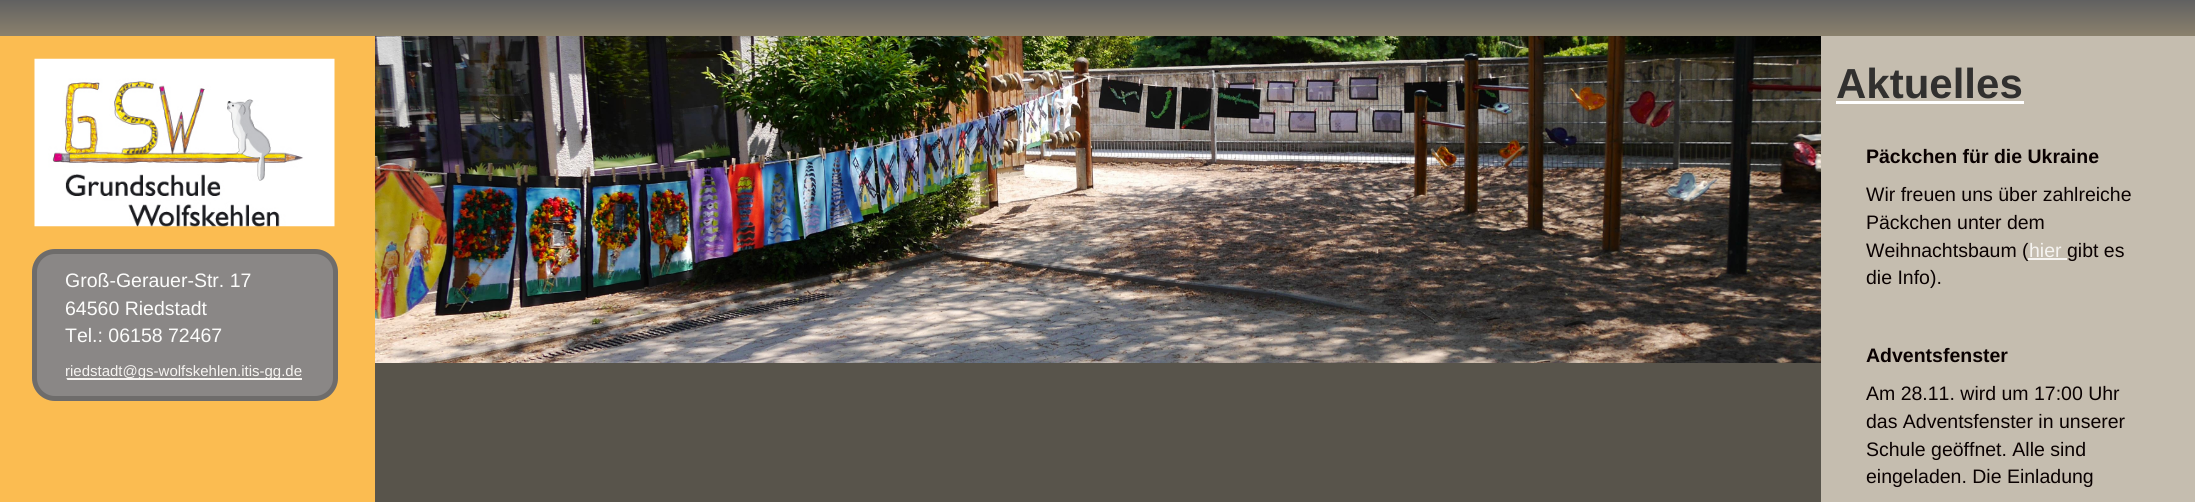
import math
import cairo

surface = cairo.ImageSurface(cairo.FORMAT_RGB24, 2195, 502)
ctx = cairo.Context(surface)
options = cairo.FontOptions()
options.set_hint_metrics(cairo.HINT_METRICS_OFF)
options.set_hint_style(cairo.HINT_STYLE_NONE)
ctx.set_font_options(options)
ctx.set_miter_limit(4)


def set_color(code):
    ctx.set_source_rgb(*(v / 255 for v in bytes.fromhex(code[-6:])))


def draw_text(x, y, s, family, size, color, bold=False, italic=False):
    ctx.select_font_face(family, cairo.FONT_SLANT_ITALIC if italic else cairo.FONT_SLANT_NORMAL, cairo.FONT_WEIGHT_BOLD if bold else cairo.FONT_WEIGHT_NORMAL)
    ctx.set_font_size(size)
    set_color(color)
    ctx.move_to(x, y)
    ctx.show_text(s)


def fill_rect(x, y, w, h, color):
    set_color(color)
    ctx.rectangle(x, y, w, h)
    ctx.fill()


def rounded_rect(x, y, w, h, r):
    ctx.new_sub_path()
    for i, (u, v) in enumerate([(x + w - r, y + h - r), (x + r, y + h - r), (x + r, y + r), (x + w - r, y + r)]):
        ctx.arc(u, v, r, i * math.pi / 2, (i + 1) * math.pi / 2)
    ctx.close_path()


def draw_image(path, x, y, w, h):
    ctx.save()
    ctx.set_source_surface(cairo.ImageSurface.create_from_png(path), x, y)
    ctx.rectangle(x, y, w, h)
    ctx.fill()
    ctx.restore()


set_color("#ffffff")
ctx.paint()
gradient = cairo.LinearGradient(1098, 0, 1098, 36)
gradient.add_color_stop_rgba(0, 0.38, 0.38, 0.38, 1)
gradient.add_color_stop_rgba(1, 0.545, 0.506, 0.427, 1)
ctx.set_source(gradient)
ctx.rectangle(0, 0, 2195, 36)
ctx.fill()
fill_rect(0, 36, 375, 466, "#fbbc51")
draw_image("assets/img1.png", 34, 58, 301, 169)
set_color("#8a8786")
rounded_rect(32, 249, 306, 152, 23)
ctx.fill()
rounded_rect(34.5, 251.5, 301, 147, 20.5)
ctx.set_source_rgba(0, 0, 0, 0.2)
ctx.set_line_width(5)
ctx.stroke()
draw_text(65, 287, "Groß-Gerauer-Str. 17", "Liberation Sans", 19.5, "#fcfcfb")
draw_text(65, 315, "64560 Riedstadt", "Liberation Sans", 19.5, "#fcfcfb")
draw_text(65, 342, "Tel.: 06158 72467", "Liberation Sans", 19.5, "#fcfcfb")
ctx.save()
rounded_rect(65, 257, 258, 136, 23)
ctx.clip()
fill_rect(65, 378, 237, 2, "#f6f4f1")
draw_text(65, 376, "riedstadt@gs-wolfskehlen.itis-gg.de", "Liberation Sans", 15, "#f6f4f1")
ctx.restore()
fill_rect(375, 363, 1446, 139, "#58544b")
draw_image("assets/img2.png", 375, 36, 1446, 327)
fill_rect(1821, 36, 374, 466, "#c5bdaf")
draw_text(1836, 98, "Aktuelles", "Liberation Sans", 42, "#31302f", bold=True)
fill_rect(1836, 101, 188, 3, "#ffffff")
draw_text(1866, 163, "Päckchen für die Ukraine", "Liberation Sans", 19.5, "#0a0101", bold=True)
draw_text(1866, 201, "Wir freuen uns über zahlreiche", "Liberation Sans", 19.5, "#0a0101")
draw_text(1866, 229, "Päckchen unter dem", "Liberation Sans", 19.5, "#0a0101")
draw_text(1866, 257, "Weihnachtsbaum (", "Liberation Sans", 19.5, "#0a0101")
fill_rect(2028, 258, 39, 2, "#f6f4f1")
draw_text(2029, 257, "hier", "Liberation Sans", 19.5, "#f6f4f1")
draw_text(2067, 257, "gibt es", "Liberation Sans", 19.5, "#0a0101")
draw_text(1866, 284, "die Info).", "Liberation Sans", 19.5, "#0a0101")
draw_text(1866, 362, "Adventsfenster", "Liberation Sans", 19.5, "#0a0101", bold=True)
draw_text(1866, 400, "Am 28.11. wird um 17:00 Uhr", "Liberation Sans", 19.5, "#0a0101")
draw_text(1866, 428, "das Adventsfenster in unserer", "Liberation Sans", 19.5, "#0a0101")
draw_text(1866, 456, "Schule geöffnet. Alle sind", "Liberation Sans", 19.5, "#0a0101")
draw_text(1866, 483, "eingeladen. Die Einladung", "Liberation Sans", 19.5, "#0a0101")
surface.write_to_png("output.png")
